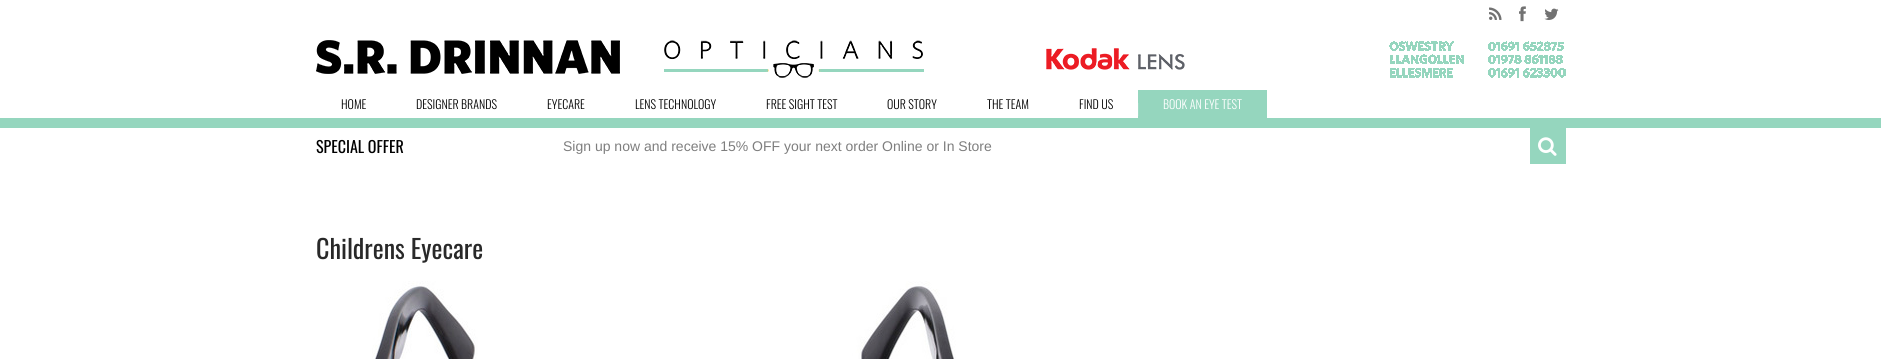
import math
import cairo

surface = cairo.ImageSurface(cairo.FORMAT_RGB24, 1881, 359)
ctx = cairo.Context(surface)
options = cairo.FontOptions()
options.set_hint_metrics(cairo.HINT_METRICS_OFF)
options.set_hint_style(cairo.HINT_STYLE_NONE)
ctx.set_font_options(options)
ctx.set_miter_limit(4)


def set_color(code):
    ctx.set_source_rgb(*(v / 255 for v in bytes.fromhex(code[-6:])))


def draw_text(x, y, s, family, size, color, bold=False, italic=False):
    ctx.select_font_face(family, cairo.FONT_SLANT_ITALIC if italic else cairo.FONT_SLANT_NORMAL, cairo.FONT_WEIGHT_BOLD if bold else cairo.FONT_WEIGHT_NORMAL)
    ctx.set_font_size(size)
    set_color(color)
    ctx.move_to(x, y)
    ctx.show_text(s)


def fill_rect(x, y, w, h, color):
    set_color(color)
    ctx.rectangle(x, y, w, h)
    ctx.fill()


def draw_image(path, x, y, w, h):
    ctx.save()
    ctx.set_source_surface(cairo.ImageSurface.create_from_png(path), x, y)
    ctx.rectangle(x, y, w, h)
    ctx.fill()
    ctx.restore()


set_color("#ffffff")
ctx.paint()
draw_image("assets/img1.png", 1489, 7, 13, 13)
draw_image("assets/img2.png", 1519, 6, 7, 16)
draw_image("assets/img3.png", 1544, 8, 15, 12)
draw_image("assets/img4.png", 316, 40, 304, 34)
draw_image("assets/img5.png", 664, 40, 902, 38)
draw_text(341, 109, "HOME", "Oswald Light", 12, "#000000")
draw_text(416, 109, "DESIGNER BRANDS", "Oswald Light", 12, "#000000")
draw_text(547, 109, "EYECARE", "Oswald Light", 12, "#000000")
draw_text(635, 109, "LENS TECHNOLOGY", "Oswald Light", 12, "#000000")
draw_text(766, 109, "FREE SIGHT TEST", "Oswald Light", 12, "#000000")
draw_text(887, 109, "OUR STORY", "Oswald Light", 12, "#000000")
draw_text(987, 109, "THE TEAM", "Oswald Light", 12, "#000000")
draw_text(1079, 109, "FIND US", "Oswald Light", 12, "#000000")
fill_rect(1138, 90, 129, 28, "#95d6be")
fill_rect(1138, 103, 1, 13, "#a0dac5")
draw_text(1163, 109, "BOOK AN EYE TEST", "Oswald Light", 12, "#ffffff")
fill_rect(0, 118, 1881, 10, "#95d6be")
draw_text(316, 153, "SPECIAL OFFER", "Oswald", 16, "#000000")
draw_text(563, 151, "Sign up now and receive 15% OFF your next order Online or In Store", "Liberation Sans", 14, "#7e7e7e")
fill_rect(1530, 128, 36, 36, "#95d6be")
draw_image("assets/img6.png", 1538, 137, 19, 19)
draw_text(316, 259, "Childrens Eyecare", "Oswald", 26, "#292929")
draw_image("assets/img7.png", 372, 281, 584, 78)
surface.write_to_png("output.png")
